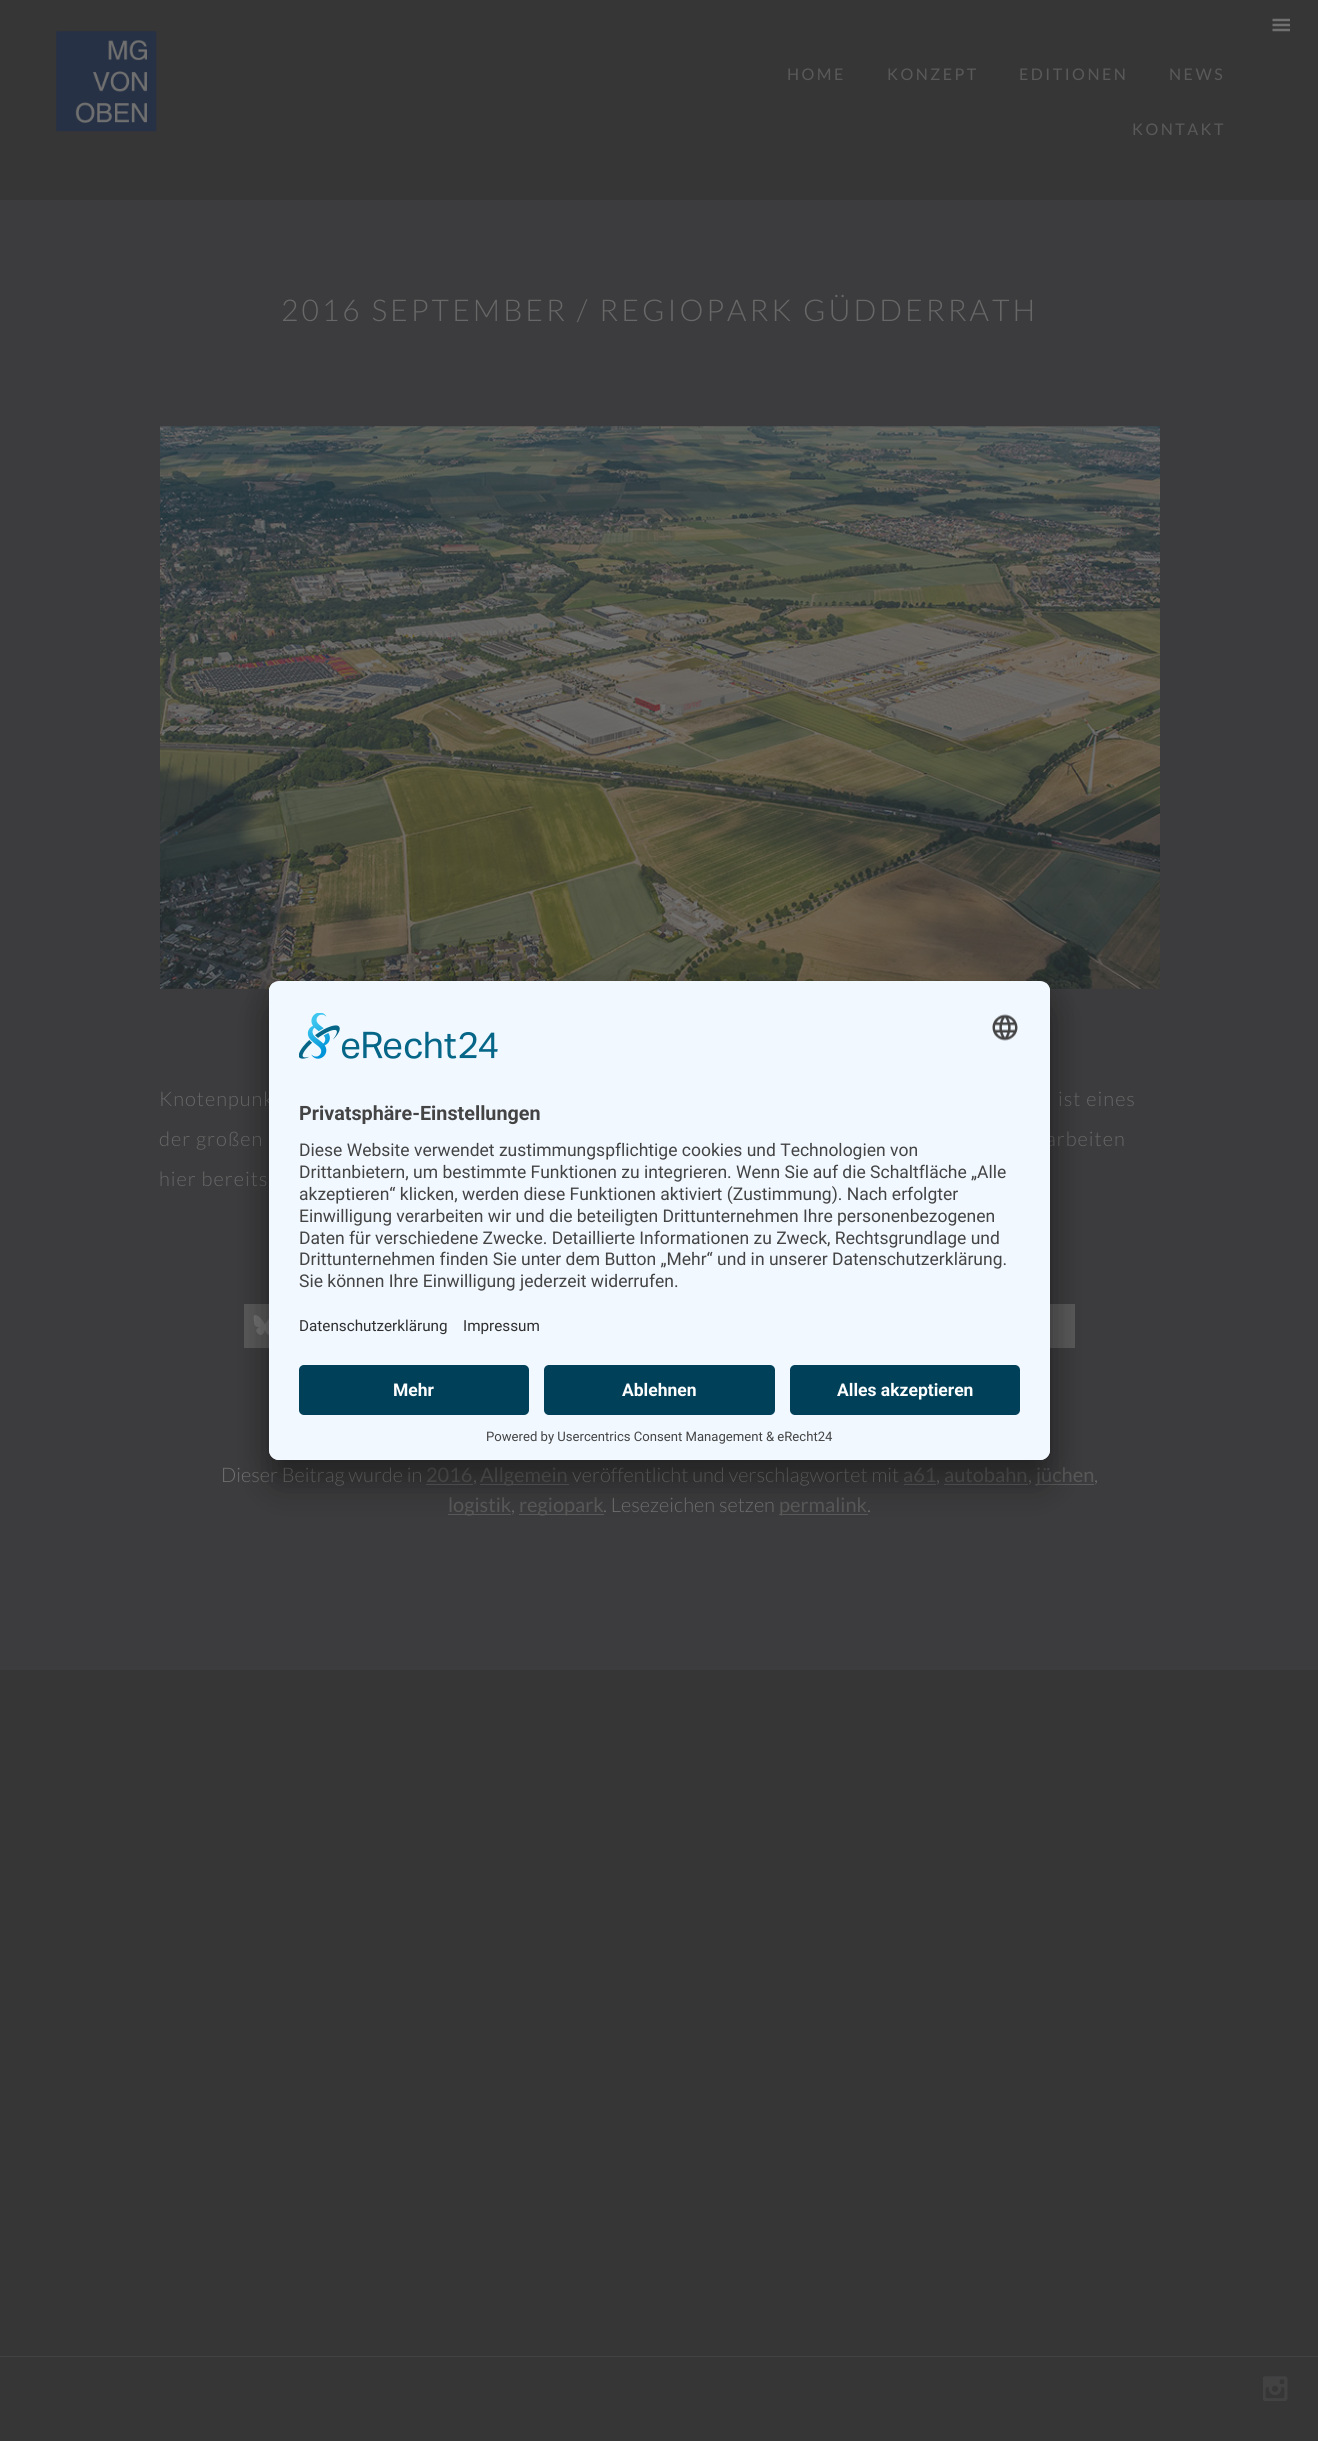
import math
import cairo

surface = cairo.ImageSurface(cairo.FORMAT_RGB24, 1318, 2441)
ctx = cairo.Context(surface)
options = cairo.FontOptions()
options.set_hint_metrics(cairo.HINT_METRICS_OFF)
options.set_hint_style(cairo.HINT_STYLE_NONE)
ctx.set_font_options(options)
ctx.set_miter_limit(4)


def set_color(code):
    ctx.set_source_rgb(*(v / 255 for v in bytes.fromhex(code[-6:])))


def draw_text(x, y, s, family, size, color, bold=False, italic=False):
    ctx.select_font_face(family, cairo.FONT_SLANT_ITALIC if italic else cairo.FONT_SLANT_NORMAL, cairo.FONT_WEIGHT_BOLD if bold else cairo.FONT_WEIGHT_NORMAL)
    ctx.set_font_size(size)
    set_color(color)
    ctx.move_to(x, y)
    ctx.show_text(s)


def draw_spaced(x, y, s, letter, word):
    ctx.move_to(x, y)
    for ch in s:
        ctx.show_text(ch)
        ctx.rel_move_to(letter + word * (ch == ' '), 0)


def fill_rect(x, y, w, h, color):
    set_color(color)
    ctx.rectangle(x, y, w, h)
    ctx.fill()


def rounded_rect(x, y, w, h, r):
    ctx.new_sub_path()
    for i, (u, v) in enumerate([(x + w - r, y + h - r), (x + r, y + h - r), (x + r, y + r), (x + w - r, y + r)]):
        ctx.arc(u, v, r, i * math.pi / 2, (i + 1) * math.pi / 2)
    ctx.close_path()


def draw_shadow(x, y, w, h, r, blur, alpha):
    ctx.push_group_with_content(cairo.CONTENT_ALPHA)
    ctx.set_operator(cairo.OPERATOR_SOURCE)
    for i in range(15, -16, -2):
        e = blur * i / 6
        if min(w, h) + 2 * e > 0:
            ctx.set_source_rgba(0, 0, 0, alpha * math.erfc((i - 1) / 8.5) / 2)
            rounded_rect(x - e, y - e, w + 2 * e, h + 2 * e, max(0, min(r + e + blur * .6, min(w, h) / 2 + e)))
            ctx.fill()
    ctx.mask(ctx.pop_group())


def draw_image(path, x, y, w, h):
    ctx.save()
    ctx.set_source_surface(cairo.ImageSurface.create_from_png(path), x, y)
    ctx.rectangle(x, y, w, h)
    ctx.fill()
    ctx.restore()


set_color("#363637")
ctx.paint()
draw_image("assets/img1.png", 1272, 18, 18, 14)
draw_image("assets/img2.png", 56, 31, 101, 101)
ctx.select_font_face("Lato")
ctx.set_font_size(16)
set_color("#595959")
draw_spaced(787, 80, "HOME", 2.5, 0)
draw_spaced(887, 80, "KONZEPT", 2.5, 0)
draw_spaced(1019, 80, "EDITIONEN", 2.5, 0)
draw_spaced(1169, 80, "NEWS", 2.5, 0)
draw_spaced(1132, 135, "KONTAKT", 2.5, 0)
fill_rect(0, 200, 1318, 1470, "#3c3c3e")
ctx.select_font_face("Lato Light")
ctx.set_font_size(30)
set_color("#676767")
draw_spaced(281, 321, "2016 SEPTEMBER / REGIOPARK GÜDDERRATH", 3, 0)
draw_image("assets/img3.png", 160, 426, 1000, 563)
ctx.set_font_size(20)
draw_spaced(159, 1106, "Knotenpunk", 1, 0)
draw_spaced(1058, 1106, "ist eines", 1, 0)
draw_spaced(159, 1146, "der großen", 1, 0)
draw_spaced(1046, 1146, "arbeiten", 1, 0)
draw_spaced(159, 1186, "hier bereits", 1, 0)
fill_rect(244, 1304, 25, 44, "#595959")
draw_image("assets/img4.png", 253, 1315, 16, 20)
fill_rect(1050, 1304, 25, 44, "#595959")
draw_text(221, 1482, "Dieser Beitrag wurde in", "Lato Light", 20, "#707070")
draw_text(426, 1482, "2016", "Lato", 20, "#595959")
fill_rect(426, 1484, 47, 1, "#595959")
draw_text(473, 1482, ",", "Lato Light", 20, "#707070")
fill_rect(480, 1484, 89, 1, "#595959")
draw_text(480, 1482, "Allgemein", "Lato", 20, "#595959")
draw_text(572, 1482, "veröffentlicht und verschlagwortet mit", "Lato Light", 20, "#707070")
draw_text(903, 1482, "a61", "Lato", 20, "#595959")
fill_rect(904, 1484, 32, 1, "#595959")
draw_text(936, 1482, ",", "Lato Light", 20, "#707070")
draw_text(944, 1482, "autobahn", "Lato", 20, "#595959")
fill_rect(944, 1484, 84, 1, "#595959")
draw_text(1028, 1482, ",", "Lato Light", 20, "#707070")
fill_rect(1035, 1484, 59, 1, "#595959")
draw_text(1036, 1482, "jüchen", "Lato", 20, "#595959")
draw_text(1094, 1482, ",", "Lato Light", 20, "#707070")
fill_rect(448, 1514, 63, 1, "#595959")
draw_text(448, 1512, "logistik", "Lato", 20, "#595959")
draw_text(511, 1512, ",", "Lato Light", 20, "#707070")
fill_rect(519, 1514, 85, 1, "#595959")
draw_text(519, 1512, "regiopark", "Lato", 20, "#595959")
draw_text(603, 1512, ". Lesezeichen setzen", "Lato Light", 20, "#707070")
fill_rect(779, 1514, 89, 1, "#595959")
draw_text(779, 1512, "permalink", "Lato", 20, "#595959")
draw_text(867, 1512, ".", "Lato Light", 20, "#707070")
fill_rect(0, 2356, 1318, 1, "#424243")
draw_image("assets/img5.png", 1263, 2376, 25, 25)
set_color("#000000")
draw_shadow(269, 1006, 781, 479, 10, 17.5, 0.3)
draw_shadow(269, 988, 781, 478, 10, 16, 0.22)
set_color("#f1f8ff")
rounded_rect(269, 981, 781, 479, 10)
ctx.fill()
ctx.save()
rounded_rect(269, 981, 781, 479, 10)
ctx.clip()
ctx.new_path()
ctx.move_to(279, 981)
ctx.line_to(1040, 981)
ctx.curve_to(1045.5, 981, 1050, 985.5, 1050, 991)
ctx.line_to(1050, 1355)
ctx.line_to(269, 1355)
ctx.line_to(269, 991)
ctx.curve_to(269, 985.5, 273.5, 981, 279, 981)
ctx.close_path()
ctx.clip()
fill_rect(269, 983, 781, 372, "#f1f8ff")
ctx.restore()
draw_image("assets/img6.png", 299, 1013, 199, 46)
draw_image("assets/img7.png", 992, 1014, 26, 27)
draw_text(299, 1120, "Privatsphäre-Einstellungen", "Roboto", 19.75, "#444444", bold=True)
draw_text(299, 1156, "Diese Website verwendet zustimmungspflichtige cookies und Technologien von", "Roboto", 17.5, "#444444")
draw_text(299, 1178, "Drittanbietern, um bestimmte Funktionen zu integrieren. Wenn Sie auf die Schaltfläche „Alle", "Roboto", 17.5, "#444444")
draw_text(299, 1200, "akzeptieren“ klicken, werden diese Funktionen aktiviert (Zustimmung). Nach erfolgter", "Roboto", 17.5, "#444444")
draw_text(299, 1222, "Einwilligung verarbeiten wir und die beteiligten Drittunternehmen Ihre personenbezogenen", "Roboto", 17.5, "#444444")
draw_text(299, 1244, "Daten für verschiedene Zwecke. Detaillierte Informationen zu Zweck, Rechtsgrundlage und", "Roboto", 17.5, "#444444")
draw_text(299, 1265, "Drittunternehmen finden Sie unter dem Button „Mehr“ und in unserer Datenschutzerklärung.", "Roboto", 17.5, "#444444")
draw_text(299, 1287, "Sie können Ihre Einwilligung jederzeit widerrufen.", "Roboto", 17.5, "#444444")
draw_text(299, 1331, "Datenschutzerklärung", "Roboto", 15.25, "#303030")
draw_text(463, 1331, "Impressum", "Roboto", 15.25, "#303030")
set_color("#f1f8ff")
ctx.new_path()
ctx.move_to(269, 1355)
ctx.line_to(1050, 1355)
ctx.line_to(1050, 1450)
ctx.curve_to(1050, 1455.5, 1045.5, 1460, 1040, 1460)
ctx.line_to(279, 1460)
ctx.curve_to(273.5, 1460, 269, 1455.5, 269, 1450)
ctx.close_path()
ctx.fill()
set_color("#004059")
rounded_rect(299, 1365, 230, 50, 5)
ctx.fill()
draw_text(393, 1396, "Mehr", "Roboto", 17.5, "#ffffff", bold=True)
set_color("#004059")
rounded_rect(544, 1365, 231, 50, 5)
ctx.fill()
draw_text(622, 1396, "Ablehnen", "Roboto", 17.5, "#ffffff", bold=True)
set_color("#004059")
rounded_rect(790, 1365, 230, 50, 5)
ctx.fill()
draw_text(837, 1396, "Alles akzeptieren", "Roboto", 17.5, "#ffffff", bold=True)
draw_text(486, 1441, "Powered by Usercentrics Consent Management & eRecht24", "Roboto", 13.1, "#444444")
surface.write_to_png("output.png")
